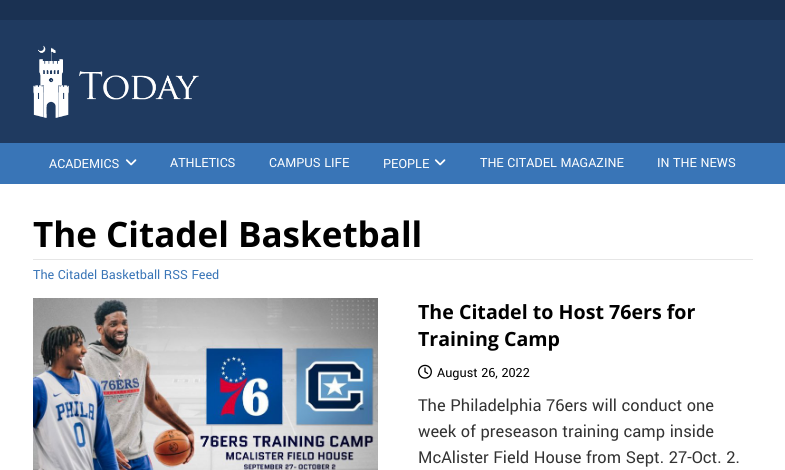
import math
import cairo

surface = cairo.ImageSurface(cairo.FORMAT_RGB24, 785, 470)
ctx = cairo.Context(surface)
options = cairo.FontOptions()
options.set_hint_metrics(cairo.HINT_METRICS_OFF)
options.set_hint_style(cairo.HINT_STYLE_NONE)
ctx.set_font_options(options)
ctx.set_miter_limit(4)


def set_color(code):
    ctx.set_source_rgb(*(v / 255 for v in bytes.fromhex(code[-6:])))


def draw_text(x, y, s, family, size, color, bold=False, italic=False):
    ctx.select_font_face(family, cairo.FONT_SLANT_ITALIC if italic else cairo.FONT_SLANT_NORMAL, cairo.FONT_WEIGHT_BOLD if bold else cairo.FONT_WEIGHT_NORMAL)
    ctx.set_font_size(size)
    set_color(color)
    ctx.move_to(x, y)
    ctx.show_text(s)


def fill_rect(x, y, w, h, color):
    set_color(color)
    ctx.rectangle(x, y, w, h)
    ctx.fill()


def draw_image(path, x, y, w, h):
    ctx.save()
    ctx.set_source_surface(cairo.ImageSurface.create_from_png(path), x, y)
    ctx.rectangle(x, y, w, h)
    ctx.fill()
    ctx.restore()


set_color("#ffffff")
ctx.paint()
fill_rect(0, 0, 785, 20, "#1a3152")
fill_rect(0, 20, 785, 123, "#1f3a60")
draw_image("assets/img1.png", 33, 45, 166, 73)
fill_rect(0, 143, 785, 41, "#3975b7")
draw_text(49, 168, "ACADEMICS", "Yantramanav", 14, "#ffffff")
draw_image("assets/img2.png", 125, 159, 12, 7)
draw_text(170, 167, "ATHLETICS", "Yantramanav", 14, "#ffffff")
draw_text(269, 167, "CAMPUS LIFE", "Yantramanav", 14, "#ffffff")
draw_text(383, 168, "PEOPLE", "Yantramanav", 14, "#ffffff")
draw_image("assets/img2.png", 434, 159, 12, 7)
draw_text(480, 167, "THE CITADEL MAGAZINE", "Yantramanav", 14, "#ffffff")
draw_text(657, 167, "IN THE NEWS", "Yantramanav", 14, "#ffffff")
fill_rect(33, 259, 720, 1, "#e6e6e6")
draw_text(33, 247, "The Citadel Basketball", "Open Sans", 35, "#000000", bold=True)
draw_text(33, 279, "The Citadel Basketball RSS Feed", "Yantramanav", 14, "#3975b7")
draw_image("assets/img3.png", 33, 298, 345, 172)
draw_text(418, 319, "The Citadel to Host 76ers for", "Open Sans", 19.6, "#000000", bold=True)
draw_text(418, 346, "Training Camp", "Open Sans", 19.6, "#000000", bold=True)
draw_image("assets/img4.png", 418, 364, 14, 15)
draw_text(437, 377, "August 26, 2022", "Yantramanav", 14, "#000000")
draw_text(418, 411, "The Philadelphia 76ers will conduct one", "Yantramanav", 18.25, "#333333")
draw_text(418, 437, "week of preseason training camp inside", "Yantramanav", 18.25, "#333333")
draw_text(418, 463, "McAlister Field House from Sept. 27-Oct. 2.", "Yantramanav", 18.25, "#333333")
surface.write_to_png("output.png")
